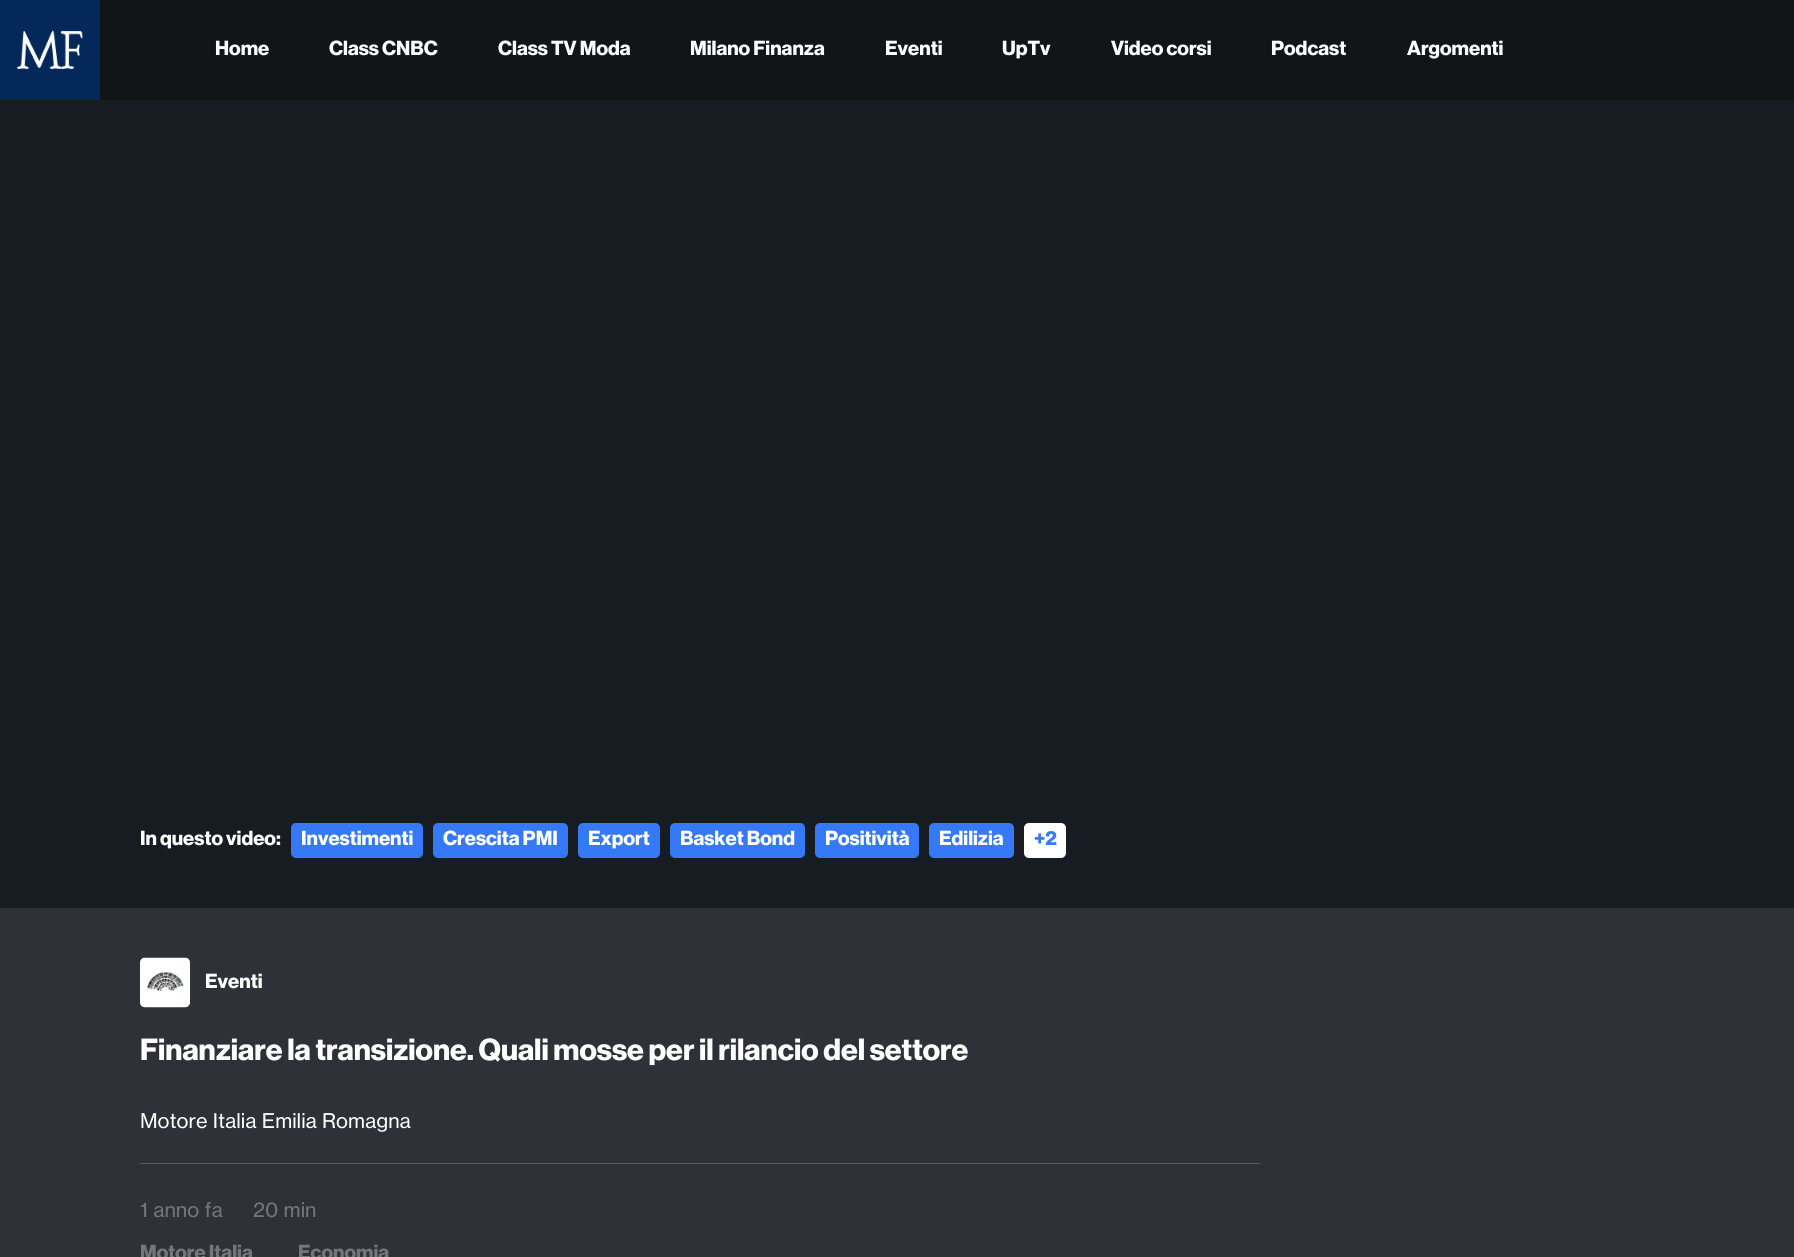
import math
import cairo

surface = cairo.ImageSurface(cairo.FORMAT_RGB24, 1794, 1257)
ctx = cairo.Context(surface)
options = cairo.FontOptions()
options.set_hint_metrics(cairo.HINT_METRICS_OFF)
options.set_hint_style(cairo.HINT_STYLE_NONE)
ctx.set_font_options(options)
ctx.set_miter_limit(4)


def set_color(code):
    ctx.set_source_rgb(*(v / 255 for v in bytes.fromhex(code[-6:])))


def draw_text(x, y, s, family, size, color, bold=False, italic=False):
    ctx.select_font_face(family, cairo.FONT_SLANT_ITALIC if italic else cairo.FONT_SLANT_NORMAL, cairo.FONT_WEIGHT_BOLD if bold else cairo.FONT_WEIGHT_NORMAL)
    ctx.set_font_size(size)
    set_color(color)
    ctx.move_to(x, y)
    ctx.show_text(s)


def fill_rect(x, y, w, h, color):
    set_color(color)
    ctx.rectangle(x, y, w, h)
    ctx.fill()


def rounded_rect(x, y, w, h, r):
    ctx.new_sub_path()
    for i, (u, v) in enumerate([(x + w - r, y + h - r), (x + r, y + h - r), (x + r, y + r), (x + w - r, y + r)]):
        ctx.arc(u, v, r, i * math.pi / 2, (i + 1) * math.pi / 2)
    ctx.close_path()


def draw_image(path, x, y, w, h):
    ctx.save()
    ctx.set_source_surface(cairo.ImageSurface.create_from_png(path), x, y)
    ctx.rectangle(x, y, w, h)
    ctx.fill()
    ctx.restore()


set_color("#171b22")
ctx.paint()
fill_rect(100, 0, 1694, 100, "#121416")
draw_image("assets/img1.png", 0, 0, 100, 100)
draw_text(215, 55, "Home", "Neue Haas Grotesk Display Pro", 20, "#ffffff", bold=True)
draw_text(329, 55, "Class CNBC", "Neue Haas Grotesk Display Pro", 20, "#ffffff", bold=True)
draw_text(498, 55, "Class TV Moda", "Neue Haas Grotesk Display Pro", 20, "#ffffff", bold=True)
draw_text(690, 55, "Milano Finanza", "Neue Haas Grotesk Display Pro", 20, "#ffffff", bold=True)
draw_text(885, 55, "Eventi", "Neue Haas Grotesk Display Pro", 20, "#ffffff", bold=True)
draw_text(1002, 55, "UpTv", "Neue Haas Grotesk Display Pro", 20, "#ffffff", bold=True)
draw_text(1111, 55, "Video corsi", "Neue Haas Grotesk Display Pro", 20, "#ffffff", bold=True)
draw_text(1271, 55, "Podcast", "Neue Haas Grotesk Display Pro", 20, "#ffffff", bold=True)
draw_text(1407, 55, "Argomenti", "Neue Haas Grotesk Display Pro", 20, "#ffffff", bold=True)
draw_text(140, 845, "In questo video:", "Neue Haas Grotesk Display Pro", 20, "#ffffff", bold=True)
set_color("#3579f6")
rounded_rect(291, 823, 132, 35, 5)
ctx.fill()
draw_text(301, 845, "Investimenti", "Neue Haas Grotesk Display Pro", 20, "#ffffff", bold=True)
set_color("#3579f6")
rounded_rect(433, 823, 135, 35, 5)
ctx.fill()
draw_text(443, 845, "Crescita PMI", "Neue Haas Grotesk Display Pro", 20, "#ffffff", bold=True)
set_color("#3579f6")
rounded_rect(578, 823, 82, 35, 5)
ctx.fill()
draw_text(588, 845, "Export", "Neue Haas Grotesk Display Pro", 20, "#ffffff", bold=True)
set_color("#3579f6")
rounded_rect(670, 823, 135, 35, 5)
ctx.fill()
draw_text(680, 845, "Basket Bond", "Neue Haas Grotesk Display Pro", 20, "#ffffff", bold=True)
set_color("#3579f6")
rounded_rect(815, 823, 104, 35, 5)
ctx.fill()
draw_text(825, 845, "Positività", "Neue Haas Grotesk Display Pro", 20, "#ffffff", bold=True)
set_color("#3579f6")
rounded_rect(929, 823, 85, 35, 5)
ctx.fill()
draw_text(939, 845, "Edilizia", "Neue Haas Grotesk Display Pro", 20, "#ffffff", bold=True)
rounded_rect(1024, 823, 42, 35, 5)
ctx.fill()
draw_text(1034, 845, "+2", "Neue Haas Grotesk Display Pro", 20, "#3579f6", bold=True)
fill_rect(0, 908, 1794, 349, "#2e3238")
draw_image("assets/img2.png", 140, 957, 50, 51)
draw_text(205, 988, "Eventi", "Neue Haas Grotesk Display Pro", 20, "#ffffff", bold=True)
draw_text(140, 1060, "Finanziare la transizione. Quali mosse per il rilancio del settore", "Neue Haas Grotesk Display Pro", 30, "#ffffff", bold=True)
draw_text(140, 1128, "Motore Italia Emilia Romagna", "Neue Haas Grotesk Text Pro", 20, "#ffffff")
fill_rect(140, 1163, 1120, 1, "#585b60")
draw_text(140, 1217, "1 anno fa", "Neue Haas Grotesk Text Pro", 20, "#74767a")
draw_text(253, 1217, "20 min", "Neue Haas Grotesk Text Pro", 20, "#74767a")
draw_text(140, 1259, "Motore Italia", "Neue Haas Grotesk Display Pro", 20, "#74767a", bold=True)
draw_text(298, 1259, "Economia", "Neue Haas Grotesk Display Pro", 20, "#74767a", bold=True)
surface.write_to_png("output.png")
